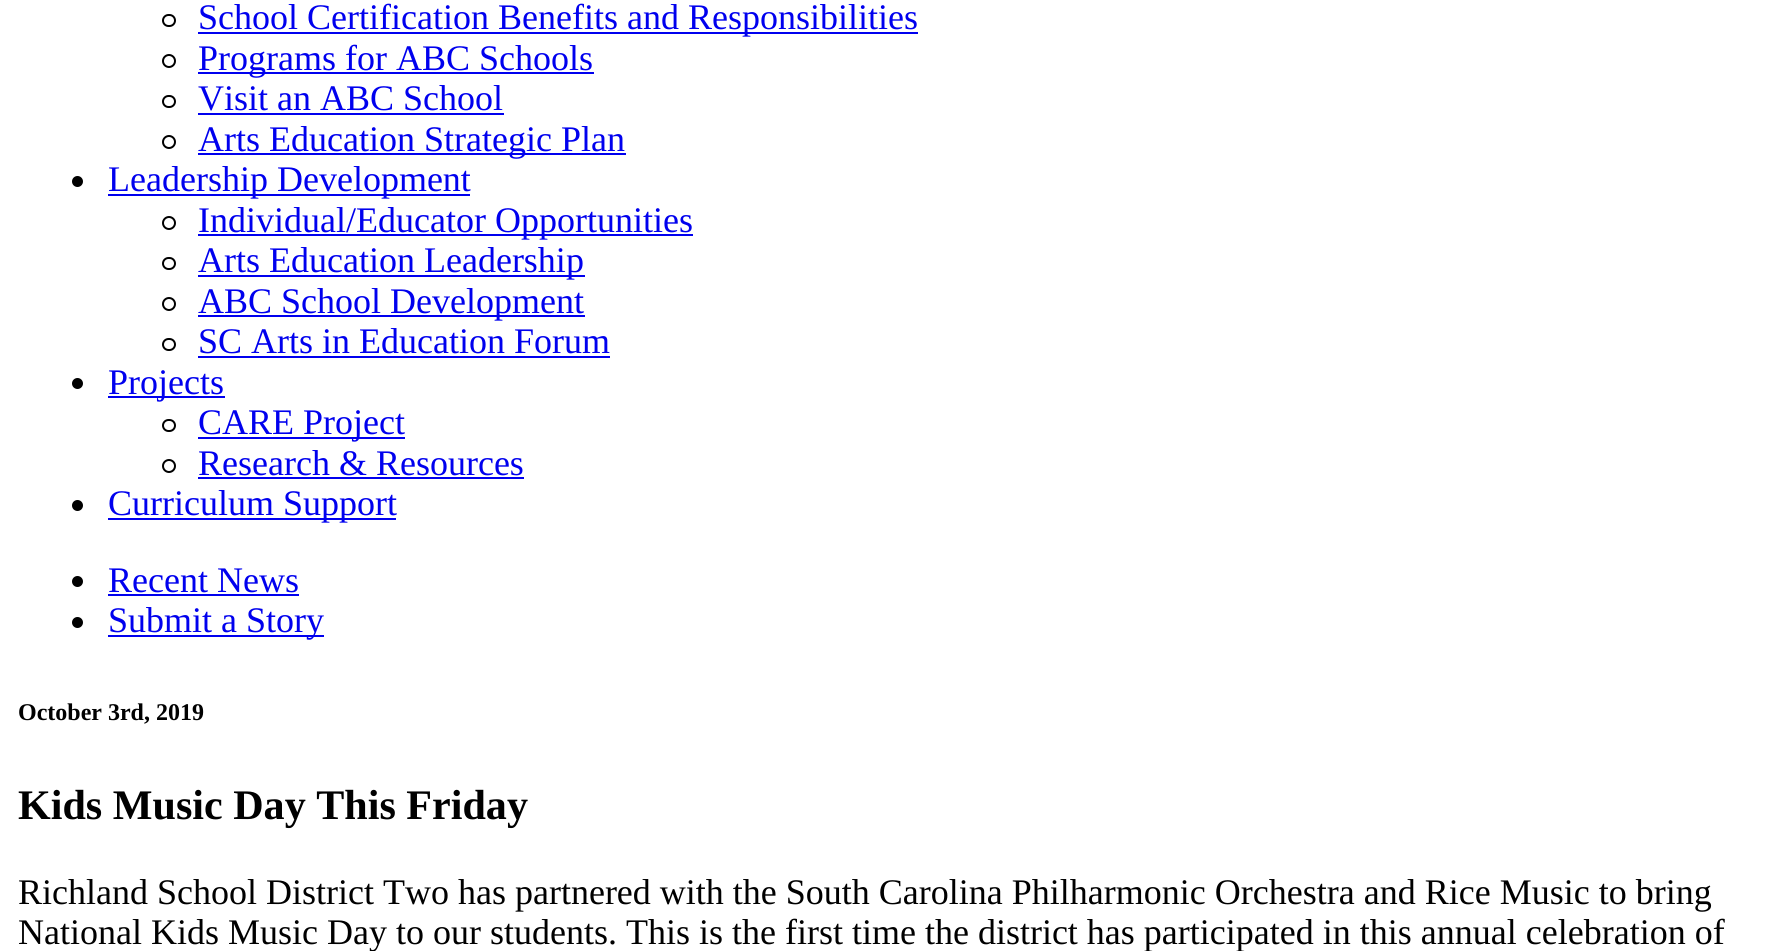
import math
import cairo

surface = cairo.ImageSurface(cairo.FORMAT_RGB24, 1779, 951)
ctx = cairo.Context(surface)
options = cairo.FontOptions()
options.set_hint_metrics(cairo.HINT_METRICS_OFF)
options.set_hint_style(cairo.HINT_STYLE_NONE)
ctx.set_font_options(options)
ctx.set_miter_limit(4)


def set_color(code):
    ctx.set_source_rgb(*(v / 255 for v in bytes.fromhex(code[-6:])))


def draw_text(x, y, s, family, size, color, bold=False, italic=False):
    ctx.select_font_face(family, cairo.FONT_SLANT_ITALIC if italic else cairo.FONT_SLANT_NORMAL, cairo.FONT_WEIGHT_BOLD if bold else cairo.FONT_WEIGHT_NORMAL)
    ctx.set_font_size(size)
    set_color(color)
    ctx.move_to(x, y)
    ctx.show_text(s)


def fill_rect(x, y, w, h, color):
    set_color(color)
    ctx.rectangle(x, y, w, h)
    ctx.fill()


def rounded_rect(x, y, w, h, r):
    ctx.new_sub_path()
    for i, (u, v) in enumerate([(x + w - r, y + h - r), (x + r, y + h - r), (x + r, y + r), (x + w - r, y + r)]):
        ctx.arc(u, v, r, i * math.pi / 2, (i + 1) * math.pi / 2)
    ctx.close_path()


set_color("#ffffff")
ctx.paint()
rounded_rect(163, 15, 12, 11, 5.5)
set_color("#000000")
ctx.stroke()
fill_rect(198, 32, 720, 2, "#0000ee")
draw_text(198, 29, "School Certification Benefits and Responsibilities", "Liberation Serif", 36, "#0000ee")
ctx.new_path()
ctx.arc(169, 61, 6, 0, 2 * math.pi)
set_color("#000000")
ctx.stroke()
fill_rect(198, 72, 396, 2, "#0000ee")
draw_text(198, 70, "Programs for ABC Schools", "Liberation Serif", 36, "#0000ee")
rounded_rect(163, 96, 12, 11, 5.5)
set_color("#000000")
ctx.stroke()
draw_text(198, 110, "Visit an ABC School", "Liberation Serif", 36, "#0000ee")
fill_rect(198, 113, 306, 2, "#0000ee")
ctx.new_path()
ctx.arc(169, 142, 6, 0, 2 * math.pi)
set_color("#000000")
ctx.stroke()
fill_rect(198, 153, 428, 2, "#0000ee")
draw_text(198, 151, "Arts Education Strategic Plan", "Liberation Serif", 36, "#0000ee")
set_color("#000000")
ctx.new_path()
ctx.arc(77.5, 181.5, 5.5, 0, 2 * math.pi)
ctx.fill()
fill_rect(108, 194, 362, 2, "#0000ee")
draw_text(108, 191, "Leadership Development", "Liberation Serif", 36, "#0000ee")
ctx.new_path()
ctx.arc(169, 223, 6, 0, 2 * math.pi)
set_color("#000000")
ctx.stroke()
fill_rect(198, 234, 495, 2, "#0000ee")
draw_text(198, 232, "Individual/Educator Opportunities", "Liberation Serif", 36, "#0000ee")
rounded_rect(163, 258, 12, 11, 5.5)
set_color("#000000")
ctx.stroke()
fill_rect(198, 275, 387, 2, "#0000ee")
draw_text(198, 272, "Arts Education Leadership", "Liberation Serif", 36, "#0000ee")
ctx.new_path()
ctx.arc(169, 304, 6, 0, 2 * math.pi)
set_color("#000000")
ctx.stroke()
fill_rect(198, 315, 387, 2, "#0000ee")
draw_text(198, 313, "ABC School Development", "Liberation Serif", 36, "#0000ee")
rounded_rect(163, 339, 12, 11, 5.5)
set_color("#000000")
ctx.stroke()
draw_text(198, 353, "SC Arts in Education Forum", "Liberation Serif", 36, "#0000ee")
fill_rect(198, 356, 412, 2, "#0000ee")
set_color("#000000")
ctx.new_path()
ctx.arc(77.5, 383.5, 5.5, 0, 2 * math.pi)
ctx.fill()
fill_rect(108, 396, 117, 2, "#0000ee")
draw_text(108, 394, "Projects", "Liberation Serif", 36, "#0000ee")
rounded_rect(163, 420, 12, 11, 5.5)
set_color("#000000")
ctx.stroke()
fill_rect(198, 437, 207, 2, "#0000ee")
draw_text(198, 434, "CARE Project", "Liberation Serif", 36, "#0000ee")
ctx.new_path()
ctx.arc(169, 466, 6, 0, 2 * math.pi)
set_color("#000000")
ctx.stroke()
draw_text(198, 475, "Research & Resources", "Liberation Serif", 36, "#0000ee")
fill_rect(198, 477, 326, 2, "#0000ee")
set_color("#000000")
ctx.new_path()
ctx.arc(77.5, 505.5, 5.5, 0, 2 * math.pi)
ctx.fill()
fill_rect(108, 518, 288, 2, "#0000ee")
draw_text(108, 515, "Curriculum Support", "Liberation Serif", 36, "#0000ee")
set_color("#000000")
ctx.new_path()
ctx.arc(77.5, 581.5, 5.5, 0, 2 * math.pi)
ctx.fill()
draw_text(108, 592, "Recent News", "Liberation Serif", 36, "#0000ee")
fill_rect(108, 594, 191, 2, "#0000ee")
set_color("#000000")
ctx.new_path()
ctx.arc(77.5, 622.5, 5.5, 0, 2 * math.pi)
ctx.fill()
fill_rect(108, 635, 216, 2, "#0000ee")
draw_text(108, 632, "Submit a Story", "Liberation Serif", 36, "#0000ee")
draw_text(18, 720, "October 3rd, 2019", "Liberation Serif", 24, "#000000", bold=True)
draw_text(18, 819, "Kids Music Day This Friday", "Liberation Serif", 42.1, "#000000", bold=True)
draw_text(18, 904, "Richland School District Two has partnered with the South Carolina Philharmonic Orchestra and Rice Music to bring", "Liberation Serif", 36, "#000000")
draw_text(18, 944, "National Kids Music Day to our students. This is the first time the district has participated in this annual celebration of", "Liberation Serif", 36, "#000000")
surface.write_to_png("output.png")
